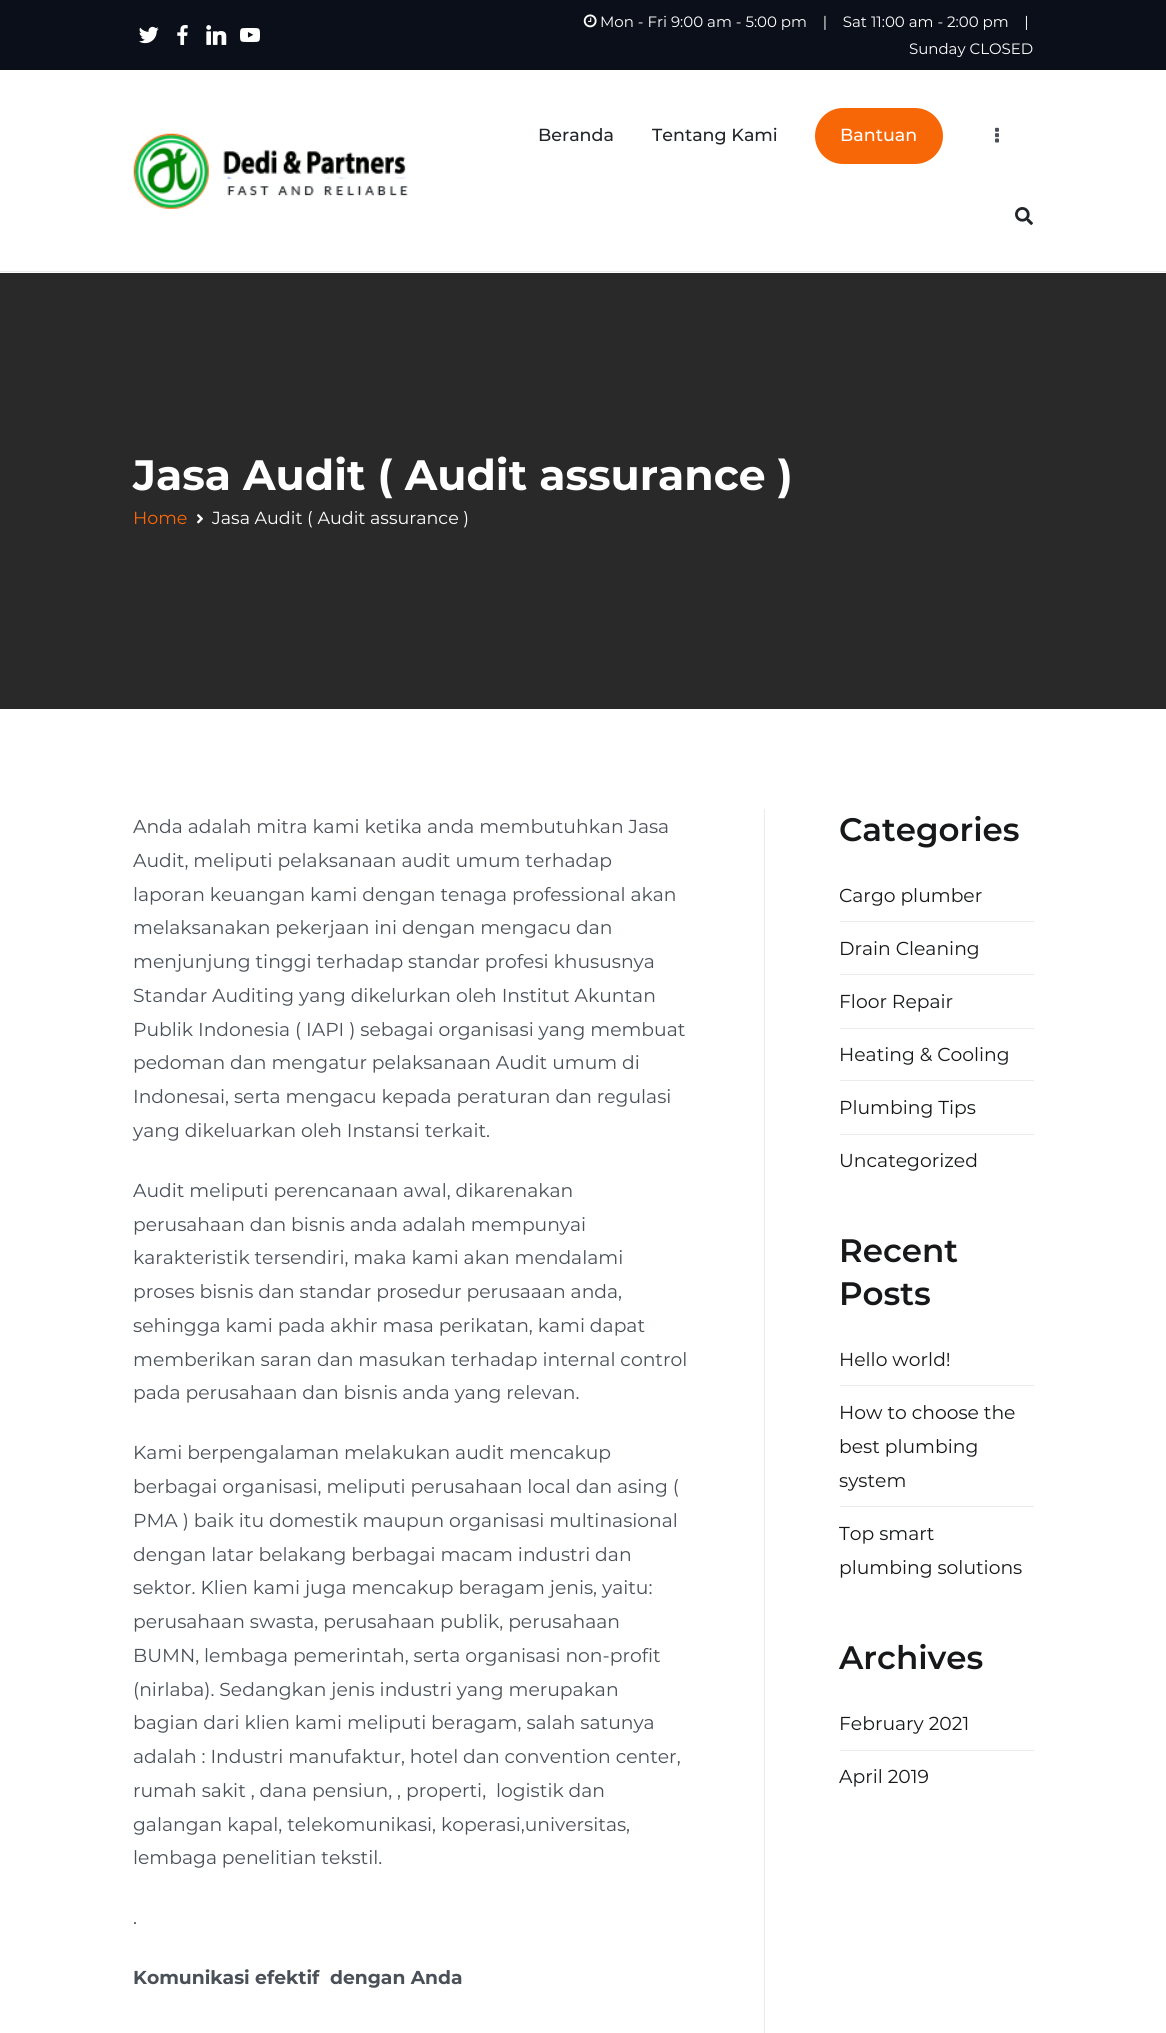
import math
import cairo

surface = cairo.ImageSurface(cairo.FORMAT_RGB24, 1166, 2033)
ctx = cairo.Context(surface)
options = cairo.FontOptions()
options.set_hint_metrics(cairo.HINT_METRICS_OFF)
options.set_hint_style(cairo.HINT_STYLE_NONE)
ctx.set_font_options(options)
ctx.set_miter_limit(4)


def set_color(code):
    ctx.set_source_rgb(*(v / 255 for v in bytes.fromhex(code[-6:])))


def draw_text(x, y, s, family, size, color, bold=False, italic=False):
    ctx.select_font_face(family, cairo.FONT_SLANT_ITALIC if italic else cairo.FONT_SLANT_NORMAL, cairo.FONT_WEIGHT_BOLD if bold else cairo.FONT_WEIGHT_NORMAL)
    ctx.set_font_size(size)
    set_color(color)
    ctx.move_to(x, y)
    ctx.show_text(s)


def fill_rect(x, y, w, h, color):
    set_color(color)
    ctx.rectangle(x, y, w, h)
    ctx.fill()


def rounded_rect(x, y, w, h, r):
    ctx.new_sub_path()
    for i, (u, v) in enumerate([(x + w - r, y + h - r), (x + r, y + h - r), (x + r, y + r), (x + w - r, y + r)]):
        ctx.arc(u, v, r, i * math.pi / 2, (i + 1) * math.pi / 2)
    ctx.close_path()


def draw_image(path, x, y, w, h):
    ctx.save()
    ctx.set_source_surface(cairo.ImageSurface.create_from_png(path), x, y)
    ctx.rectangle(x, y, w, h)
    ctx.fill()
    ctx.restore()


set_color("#ffffff")
ctx.paint()
fill_rect(0, 271, 1166, 1, "#e9ecef")
fill_rect(0, 0, 1166, 70, "#0b0f19")
draw_image("assets/img1.png", 139, 26, 20, 18)
draw_image("assets/img2.png", 177, 25, 11, 20)
draw_image("assets/img3.png", 206, 25, 21, 20)
draw_image("assets/img4.png", 240, 28, 20, 14)
draw_image("assets/img5.png", 583, 14, 14, 14)
draw_text(600, 27, "Mon - Fri 9:00 am - 5:00 pm    |    Sat 11:00 am - 2:00 pm    |", "Montserrat", 15, "#ffffff")
draw_text(909, 54, "Sunday CLOSED", "Montserrat", 15, "#ffffff")
draw_image("assets/img6.png", 133, 133, 275, 76)
draw_text(538, 141, "Beranda", "Montserrat Medium", 17.5, "#212529")
draw_text(652, 141, "Tentang Kami", "Montserrat Medium", 17.5, "#212529")
set_color("#f76707")
rounded_rect(815, 108, 128, 56, 28)
ctx.fill()
draw_text(840, 141, "Bantuan", "Montserrat Medium", 17.5, "#ffffff")
draw_image("assets/img7.png", 995, 127, 4, 16)
draw_image("assets/img8.png", 1015, 207, 18, 18)
fill_rect(0, 273, 1166, 436, "#292929")
draw_text(133, 490, "Jasa Audit ( Audit assurance )", "Montserrat", 42.5, "#ffffff", bold=True)
draw_text(133, 524, "Home", "Montserrat", 17.5, "#f76707")
draw_image("assets/img9.png", 197, 514, 6, 10)
draw_text(212, 524, "Jasa Audit ( Audit assurance )", "Montserrat", 17.5, "#ffffff")
draw_text(133, 833, "Anda adalah mitra kami ketika anda membutuhkan Jasa", "Montserrat", 18.75, "#495057")
draw_text(133, 867, "Audit, meliputi pelaksanaan audit umum terhadap", "Montserrat", 18.75, "#495057")
draw_text(133, 901, "laporan keuangan kami dengan tenaga professional akan", "Montserrat", 18.75, "#495057")
draw_text(133, 934, "melaksanakan pekerjaan ini dengan mengacu dan", "Montserrat", 18.75, "#495057")
draw_text(133, 968, "menjunjung tinggi terhadap standar profesi khususnya", "Montserrat", 18.75, "#495057")
draw_text(133, 1002, "Standar Auditing yang dikelurkan oleh Institut Akuntan", "Montserrat", 18.75, "#495057")
draw_text(133, 1036, "Publik Indonesia ( IAPI ) sebagai organisasi yang membuat", "Montserrat", 18.75, "#495057")
draw_text(133, 1069, "pedoman dan mengatur pelaksanaan Audit umum di", "Montserrat", 18.75, "#495057")
draw_text(133, 1103, "Indonesai, serta mengacu kepada peraturan dan regulasi", "Montserrat", 18.75, "#495057")
draw_text(133, 1137, "yang dikeluarkan oleh Instansi terkait.", "Montserrat", 18.75, "#495057")
draw_text(133, 1197, "Audit meliputi perencanaan awal, dikarenakan", "Montserrat", 18.75, "#495057")
draw_text(133, 1231, "perusahaan dan bisnis anda adalah mempunyai", "Montserrat", 18.75, "#495057")
draw_text(133, 1264, "karakteristik tersendiri, maka kami akan mendalami", "Montserrat", 18.75, "#495057")
draw_text(133, 1298, "proses bisnis dan standar prosedur perusaaan anda,", "Montserrat", 18.75, "#495057")
draw_text(133, 1332, "sehingga kami pada akhir masa perikatan, kami dapat", "Montserrat", 18.75, "#495057")
draw_text(133, 1366, "memberikan saran dan masukan terhadap internal control", "Montserrat", 18.75, "#495057")
draw_text(133, 1399, "pada perusahaan dan bisnis anda yang relevan.", "Montserrat", 18.75, "#495057")
draw_text(133, 1459, "Kami berpengalaman melakukan audit mencakup", "Montserrat", 18.75, "#495057")
draw_text(133, 1493, "berbagai organisasi, meliputi perusahaan local dan asing (", "Montserrat", 18.75, "#495057")
draw_text(133, 1527, "PMA ) baik itu domestik maupun organisasi multinasional", "Montserrat", 18.75, "#495057")
draw_text(133, 1561, "dengan latar belakang berbagai macam industri dan", "Montserrat", 18.75, "#495057")
draw_text(133, 1594, "sektor. Klien kami juga mencakup beragam jenis, yaitu:", "Montserrat", 18.75, "#495057")
draw_text(133, 1628, "perusahaan swasta, perusahaan publik, perusahaan", "Montserrat", 18.75, "#495057")
draw_text(133, 1662, "BUMN, lembaga pemerintah, serta organisasi non-profit", "Montserrat", 18.75, "#495057")
draw_text(133, 1696, "(nirlaba). Sedangkan jenis industri yang merupakan", "Montserrat", 18.75, "#495057")
draw_text(133, 1729, "bagian dari klien kami meliputi beragam, salah satunya", "Montserrat", 18.75, "#495057")
draw_text(133, 1763, "adalah : Industri manufaktur, hotel dan convention center,", "Montserrat", 18.75, "#495057")
draw_text(133, 1797, "rumah sakit , dana pensiun, , properti,  logistik dan", "Montserrat", 18.75, "#495057")
draw_text(133, 1831, "galangan kapal, telekomunikasi, koperasi,universitas,", "Montserrat", 18.75, "#495057")
draw_text(133, 1864, "lembaga penelitian tekstil.", "Montserrat", 18.75, "#495057")
draw_text(133, 1924, ".", "Montserrat", 18.75, "#495057")
draw_text(133, 1984, "Komunikasi efektif  dengan Anda", "Montserrat", 18.75, "#495057", bold=True)
fill_rect(764, 809, 1, 1224, "#e9ecef")
draw_text(839, 841, "Categories", "Montserrat SemiBold", 32.5, "#16181a")
fill_rect(840, 921, 194, 1, "#e9ecef")
draw_text(839, 902, "Cargo plumber", "Montserrat", 18.75, "#16181a")
fill_rect(840, 974, 194, 1, "#e9ecef")
draw_text(839, 955, "Drain Cleaning", "Montserrat", 18.75, "#16181a")
fill_rect(840, 1028, 194, 1, "#e9ecef")
draw_text(839, 1008, "Floor Repair", "Montserrat", 18.75, "#16181a")
fill_rect(840, 1080, 194, 1, "#e9ecef")
draw_text(839, 1061, "Heating & Cooling", "Montserrat", 18.75, "#16181a")
fill_rect(840, 1134, 194, 1, "#e9ecef")
draw_text(839, 1114, "Plumbing Tips", "Montserrat", 18.75, "#16181a")
draw_text(839, 1167, "Uncategorized", "Montserrat", 18.75, "#16181a")
draw_text(839, 1262, "Recent", "Montserrat SemiBold", 32.5, "#16181a")
draw_text(839, 1305, "Posts", "Montserrat SemiBold", 32.5, "#16181a")
fill_rect(840, 1385, 194, 1, "#e9ecef")
draw_text(839, 1366, "Hello world!", "Montserrat", 18.75, "#16181a")
fill_rect(840, 1506, 194, 1, "#e9ecef")
draw_text(839, 1419, "How to choose the", "Montserrat", 18.75, "#16181a")
draw_text(839, 1453, "best plumbing", "Montserrat", 18.75, "#16181a")
draw_text(839, 1487, "system", "Montserrat", 18.75, "#16181a")
draw_text(839, 1540, "Top smart", "Montserrat", 18.75, "#16181a")
draw_text(839, 1574, "plumbing solutions", "Montserrat", 18.75, "#16181a")
draw_text(839, 1669, "Archives", "Montserrat SemiBold", 32.5, "#16181a")
fill_rect(840, 1750, 194, 1, "#e9ecef")
draw_text(839, 1730, "February 2021", "Montserrat", 18.75, "#16181a")
draw_text(839, 1783, "April 2019", "Montserrat", 18.75, "#16181a")
surface.write_to_png("output.png")
